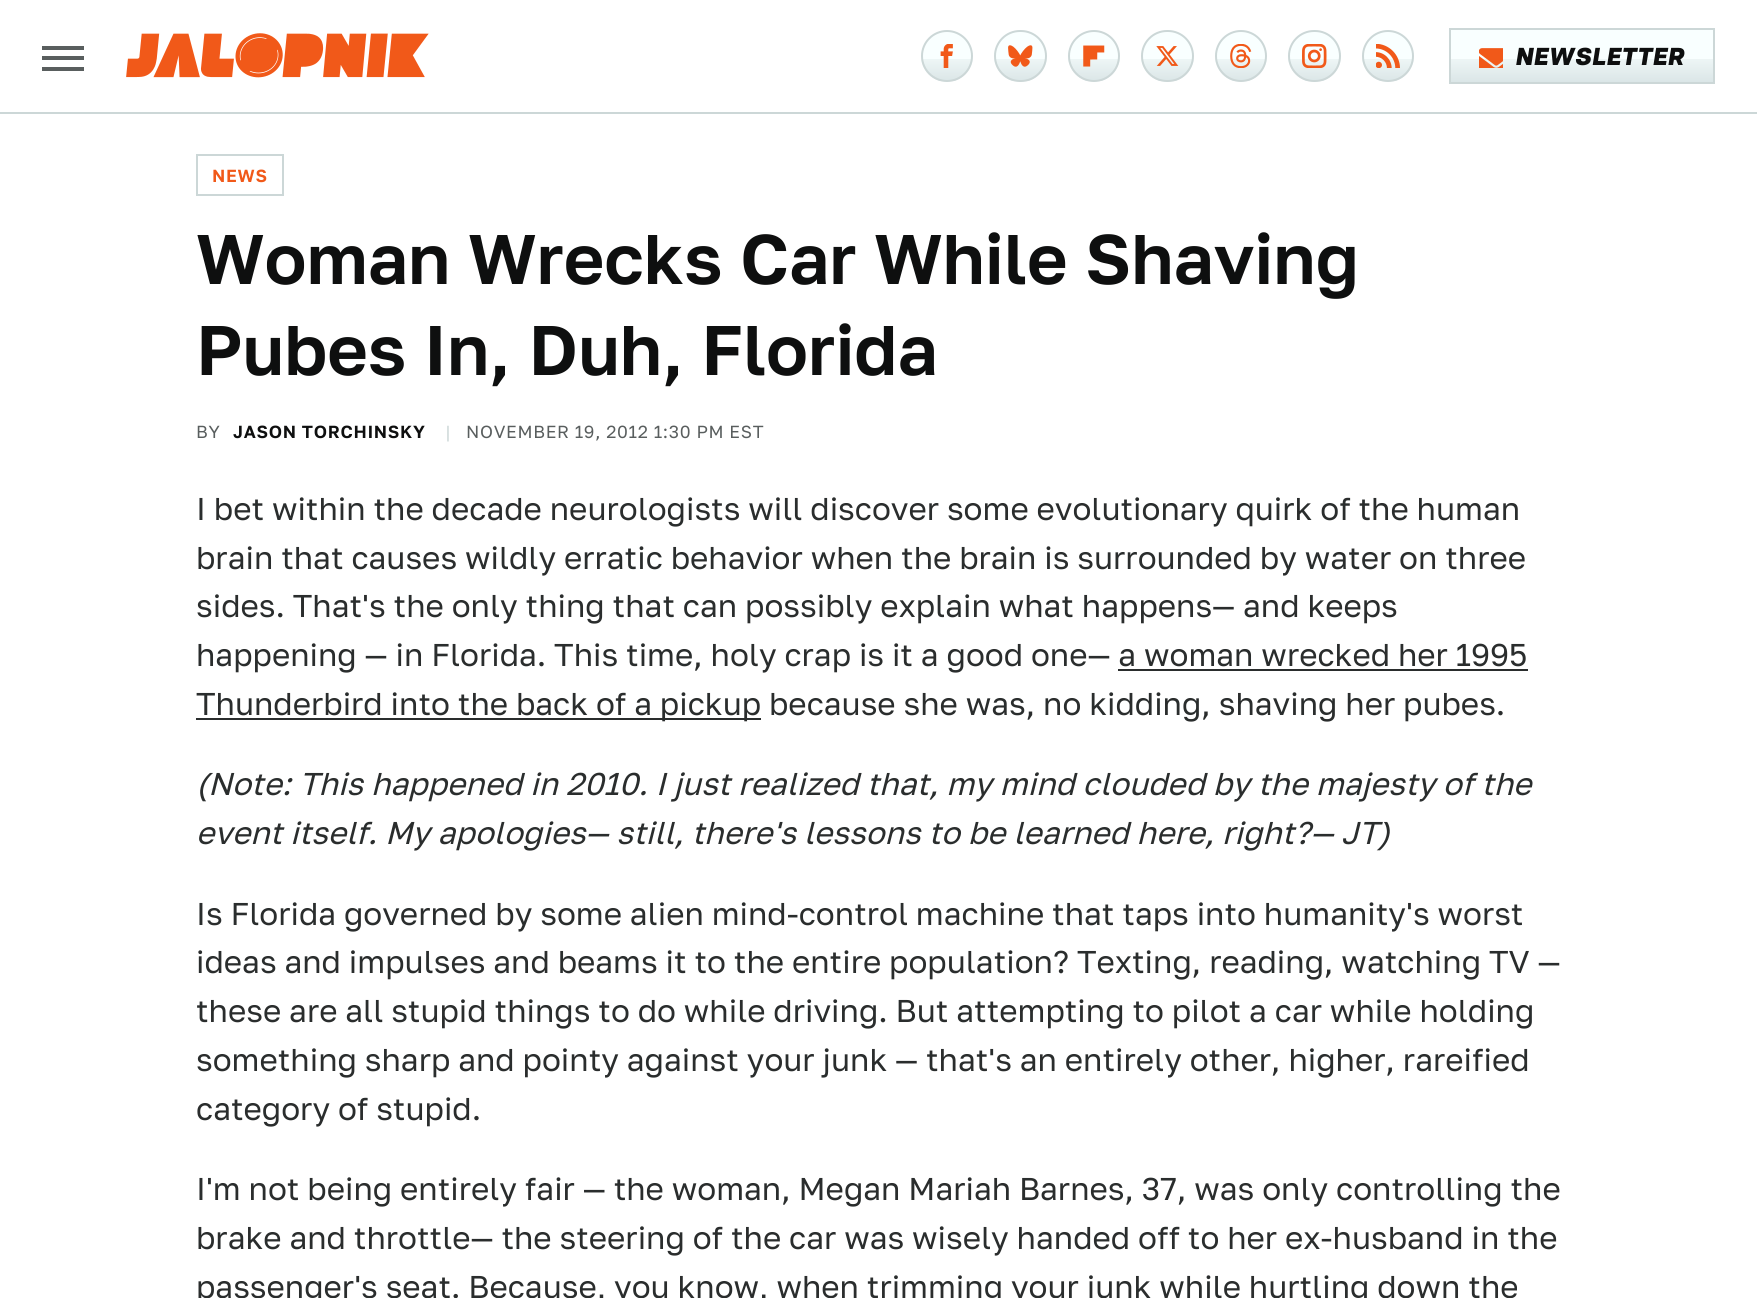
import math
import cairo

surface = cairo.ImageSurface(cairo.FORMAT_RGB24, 1757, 1298)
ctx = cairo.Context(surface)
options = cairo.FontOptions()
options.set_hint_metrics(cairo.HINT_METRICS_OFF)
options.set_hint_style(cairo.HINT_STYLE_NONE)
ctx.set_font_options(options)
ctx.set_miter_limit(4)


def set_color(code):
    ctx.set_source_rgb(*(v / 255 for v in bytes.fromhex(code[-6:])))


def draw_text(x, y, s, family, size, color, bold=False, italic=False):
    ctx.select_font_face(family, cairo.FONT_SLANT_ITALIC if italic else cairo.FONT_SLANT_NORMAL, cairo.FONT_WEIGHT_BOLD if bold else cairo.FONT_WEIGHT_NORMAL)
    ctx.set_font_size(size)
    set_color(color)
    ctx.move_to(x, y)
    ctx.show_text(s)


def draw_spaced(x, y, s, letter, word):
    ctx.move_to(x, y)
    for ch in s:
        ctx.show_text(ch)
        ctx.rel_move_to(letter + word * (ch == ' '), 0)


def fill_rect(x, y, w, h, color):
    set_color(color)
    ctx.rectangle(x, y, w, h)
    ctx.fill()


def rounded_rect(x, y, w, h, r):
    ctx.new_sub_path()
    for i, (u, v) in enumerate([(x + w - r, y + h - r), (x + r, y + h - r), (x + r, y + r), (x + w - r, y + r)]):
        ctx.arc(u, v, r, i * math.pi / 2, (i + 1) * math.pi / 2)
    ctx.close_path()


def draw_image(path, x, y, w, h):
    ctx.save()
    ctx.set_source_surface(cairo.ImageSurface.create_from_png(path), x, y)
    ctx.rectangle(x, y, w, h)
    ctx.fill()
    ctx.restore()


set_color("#ffffff")
ctx.paint()
fill_rect(0, 112, 1757, 2, "#ccd7d7")
fill_rect(42, 46, 42, 4, "#595e5e")
fill_rect(42, 56, 42, 4, "#595e5e")
fill_rect(42, 67, 42, 4, "#595e5e")
draw_image("assets/img1.png", 126, 33, 303, 45)
ctx.save()
rounded_rect(921, 30, 52, 52, 26)
ctx.clip()
gradient = cairo.LinearGradient(947, 32, 947, 81)
gradient.add_color_stop_rgba(0.55, 0.976, 1, 1, 1)
gradient.add_color_stop_rgba(0.55, 0.933, 0.965, 0.965, 1)
gradient.add_color_stop_rgba(1, 0.859, 0.902, 0.906, 1)
ctx.set_source(gradient)
ctx.rectangle(921, 32, 52, 49)
ctx.fill()
ctx.restore()
ctx.arc(947, 56, 25, 0, 2 * math.pi)
set_color("#ccd7d7")
ctx.stroke()
draw_image("assets/img2.png", 940, 44, 13, 24)
ctx.save()
rounded_rect(994, 30, 53, 52, 26)
ctx.clip()
gradient = cairo.LinearGradient(1020, 32, 1020, 81)
gradient.add_color_stop_rgba(0.55, 0.976, 1, 1, 1)
gradient.add_color_stop_rgba(0.55, 0.933, 0.965, 0.965, 1)
gradient.add_color_stop_rgba(1, 0.859, 0.902, 0.906, 1)
ctx.set_source(gradient)
ctx.rectangle(994, 32, 53, 49)
ctx.fill()
ctx.restore()
rounded_rect(995, 31, 51, 50, 25)
ctx.stroke()
draw_image("assets/img3.png", 1008, 45, 25, 22)
ctx.save()
rounded_rect(1068, 30, 52, 52, 26)
ctx.clip()
gradient = cairo.LinearGradient(1094, 32, 1094, 81)
gradient.add_color_stop_rgba(0.55, 0.976, 1, 1, 1)
gradient.add_color_stop_rgba(0.55, 0.933, 0.965, 0.965, 1)
gradient.add_color_stop_rgba(1, 0.859, 0.902, 0.906, 1)
ctx.set_source(gradient)
ctx.rectangle(1068, 32, 52, 49)
ctx.fill()
ctx.restore()
ctx.arc(1094, 56, 25, 0, 2 * math.pi)
ctx.stroke()
draw_image("assets/img4.png", 1083, 45, 22, 22)
ctx.save()
rounded_rect(1141, 30, 53, 52, 26)
ctx.clip()
gradient = cairo.LinearGradient(1167, 32, 1167, 81)
gradient.add_color_stop_rgba(0.55, 0.976, 1, 1, 1)
gradient.add_color_stop_rgba(0.55, 0.933, 0.965, 0.965, 1)
gradient.add_color_stop_rgba(1, 0.859, 0.902, 0.906, 1)
ctx.set_source(gradient)
ctx.rectangle(1141, 32, 53, 49)
ctx.fill()
ctx.restore()
rounded_rect(1142, 31, 51, 50, 25)
ctx.stroke()
draw_image("assets/img5.png", 1156, 46, 23, 20)
ctx.save()
rounded_rect(1215, 30, 52, 52, 26)
ctx.clip()
gradient = cairo.LinearGradient(1241, 32, 1241, 81)
gradient.add_color_stop_rgba(0.55, 0.976, 1, 1, 1)
gradient.add_color_stop_rgba(0.55, 0.933, 0.965, 0.965, 1)
gradient.add_color_stop_rgba(1, 0.859, 0.902, 0.906, 1)
ctx.set_source(gradient)
ctx.rectangle(1215, 32, 52, 49)
ctx.fill()
ctx.restore()
ctx.arc(1241, 56, 25, 0, 2 * math.pi)
ctx.stroke()
draw_image("assets/img6.png", 1230, 44, 22, 24)
ctx.save()
rounded_rect(1288, 30, 53, 52, 26)
ctx.clip()
gradient = cairo.LinearGradient(1314, 32, 1314, 81)
gradient.add_color_stop_rgba(0.55, 0.976, 1, 1, 1)
gradient.add_color_stop_rgba(0.55, 0.933, 0.965, 0.965, 1)
gradient.add_color_stop_rgba(1, 0.859, 0.902, 0.906, 1)
ctx.set_source(gradient)
ctx.rectangle(1288, 32, 53, 49)
ctx.fill()
ctx.restore()
rounded_rect(1289, 31, 51, 50, 25)
ctx.stroke()
draw_image("assets/img7.png", 1302, 44, 25, 24)
ctx.save()
rounded_rect(1362, 30, 52, 52, 26)
ctx.clip()
gradient = cairo.LinearGradient(1388, 32, 1388, 81)
gradient.add_color_stop_rgba(0.55, 0.976, 1, 1, 1)
gradient.add_color_stop_rgba(0.55, 0.933, 0.965, 0.965, 1)
gradient.add_color_stop_rgba(1, 0.859, 0.902, 0.906, 1)
ctx.set_source(gradient)
ctx.rectangle(1362, 32, 52, 49)
ctx.fill()
ctx.restore()
ctx.arc(1388, 56, 25, 0, 2 * math.pi)
ctx.stroke()
draw_image("assets/img8.png", 1376, 44, 24, 24)
gradient = cairo.LinearGradient(1582, 30, 1582, 82)
gradient.add_color_stop_rgba(0.55, 0.976, 1, 1, 1)
gradient.add_color_stop_rgba(0.55, 0.933, 0.965, 0.965, 1)
gradient.add_color_stop_rgba(1, 0.859, 0.902, 0.906, 1)
ctx.set_source(gradient)
ctx.rectangle(1451, 30, 262, 52)
ctx.fill()
ctx.rectangle(1450, 29, 264, 54)
set_color("#ccd7d7")
ctx.stroke()
draw_image("assets/img9.png", 1479, 48, 24, 20)
ctx.select_font_face("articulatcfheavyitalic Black", cairo.FONT_SLANT_ITALIC)
ctx.set_font_size(24.5)
set_color("#0e0f0f")
draw_spaced(1516, 65, "NEWSLETTER", 0.7, 0)
ctx.rectangle(197, 155, 86, 40)
set_color("#ccd7d7")
ctx.stroke()
ctx.select_font_face("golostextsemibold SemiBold")
ctx.set_font_size(17.5)
set_color("#f15919")
draw_spaced(212, 182, "NEWS", 0.7, 0)
draw_text(196, 284, "Woman Wrecks Car While Shaving", "golostextsemibold SemiBold", 70, "#0e0f0f")
draw_text(196, 375, "Pubes In, Duh, Florida", "golostextsemibold SemiBold", 70, "#0e0f0f")
ctx.select_font_face("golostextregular")
ctx.set_font_size(17.5)
set_color("#595e5e")
draw_spaced(196, 438, "BY", 0.7, 0)
ctx.select_font_face("golostextsemibold SemiBold")
set_color("#0e0f0f")
draw_spaced(233, 438, "JASON TORCHINSKY", 0.7, 0)
ctx.select_font_face("golostextregular")
set_color("#ccd7d7")
draw_spaced(445, 438, "|", 0.7, 0)
set_color("#595e5e")
draw_spaced(466, 438, "NOVEMBER 19, 2012 1:30 PM EST", 0.7, 0)
draw_text(196, 520, "I bet within the decade neurologists will discover some evolutionary quirk of the human", "golostextregular", 31.5, "#2a2d2d")
draw_text(196, 569, "brain that causes wildly erratic behavior when the brain is surrounded by water on three", "golostextregular", 31.5, "#2a2d2d")
draw_text(196, 617, "sides. That's the only thing that can possibly explain what happens— and keeps", "golostextregular", 31.5, "#2a2d2d")
draw_text(196, 666, "happening — in Florida. This time, holy crap is it a good one— a woman wrecked her 1995", "golostextregular", 31.5, "#2a2d2d")
fill_rect(196, 718, 565, 2, "#2a2d2d")
draw_text(196, 715, "Thunderbird into the back of a pickup", "golostextregular", 31.5, "#2a2d2d")
fill_rect(1118, 669, 410, 2, "#2a2d2d")
draw_text(769, 715, "because she was, no kidding, shaving her pubes.", "golostextregular", 31.5, "#2a2d2d")
draw_text(196, 795, "(Note: This happened in 2010. I just realized that, my mind clouded by the majesty of the", "golostextregular", 31.5, "#2a2d2d", italic=True)
draw_text(196, 844, "event itself. My apologies— still, there's lessons to be learned here, right?— JT)", "golostextregular", 31.5, "#2a2d2d", italic=True)
draw_text(196, 925, "Is Florida governed by some alien mind-control machine that taps into humanity's worst", "golostextregular", 31.5, "#2a2d2d")
draw_text(196, 973, "ideas and impulses and beams it to the entire population? Texting, reading, watching TV —", "golostextregular", 31.5, "#2a2d2d")
draw_text(196, 1022, "these are all stupid things to do while driving. But attempting to pilot a car while holding", "golostextregular", 31.5, "#2a2d2d")
draw_text(196, 1071, "something sharp and pointy against your junk — that's an entirely other, higher, rareified", "golostextregular", 31.5, "#2a2d2d")
draw_text(196, 1120, "category of stupid.", "golostextregular", 31.5, "#2a2d2d")
draw_text(196, 1200, "I'm not being entirely fair — the woman, Megan Mariah Barnes, 37, was only controlling the", "golostextregular", 31.5, "#2a2d2d")
draw_text(196, 1249, "brake and throttle— the steering of the car was wisely handed off to her ex-husband in the", "golostextregular", 31.5, "#2a2d2d")
draw_text(196, 1298, "passenger's seat. Because, you know, when trimming your junk while hurtling down the", "golostextregular", 31.5, "#2a2d2d")
surface.write_to_png("output.png")
